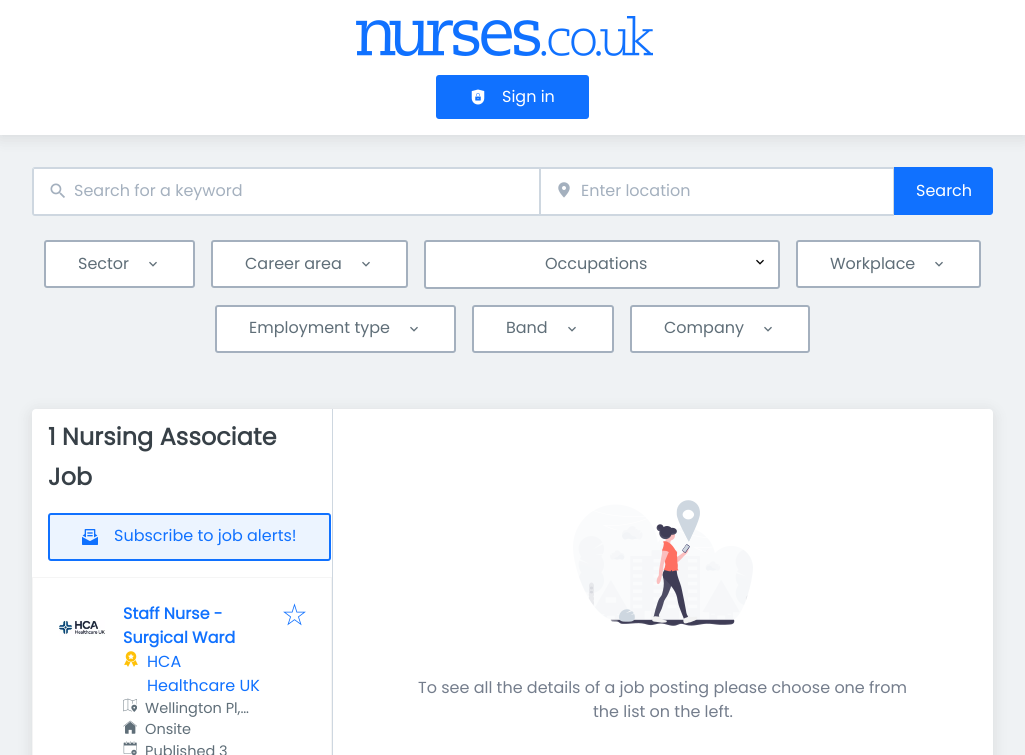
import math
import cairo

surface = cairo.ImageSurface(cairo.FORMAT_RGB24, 1025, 755)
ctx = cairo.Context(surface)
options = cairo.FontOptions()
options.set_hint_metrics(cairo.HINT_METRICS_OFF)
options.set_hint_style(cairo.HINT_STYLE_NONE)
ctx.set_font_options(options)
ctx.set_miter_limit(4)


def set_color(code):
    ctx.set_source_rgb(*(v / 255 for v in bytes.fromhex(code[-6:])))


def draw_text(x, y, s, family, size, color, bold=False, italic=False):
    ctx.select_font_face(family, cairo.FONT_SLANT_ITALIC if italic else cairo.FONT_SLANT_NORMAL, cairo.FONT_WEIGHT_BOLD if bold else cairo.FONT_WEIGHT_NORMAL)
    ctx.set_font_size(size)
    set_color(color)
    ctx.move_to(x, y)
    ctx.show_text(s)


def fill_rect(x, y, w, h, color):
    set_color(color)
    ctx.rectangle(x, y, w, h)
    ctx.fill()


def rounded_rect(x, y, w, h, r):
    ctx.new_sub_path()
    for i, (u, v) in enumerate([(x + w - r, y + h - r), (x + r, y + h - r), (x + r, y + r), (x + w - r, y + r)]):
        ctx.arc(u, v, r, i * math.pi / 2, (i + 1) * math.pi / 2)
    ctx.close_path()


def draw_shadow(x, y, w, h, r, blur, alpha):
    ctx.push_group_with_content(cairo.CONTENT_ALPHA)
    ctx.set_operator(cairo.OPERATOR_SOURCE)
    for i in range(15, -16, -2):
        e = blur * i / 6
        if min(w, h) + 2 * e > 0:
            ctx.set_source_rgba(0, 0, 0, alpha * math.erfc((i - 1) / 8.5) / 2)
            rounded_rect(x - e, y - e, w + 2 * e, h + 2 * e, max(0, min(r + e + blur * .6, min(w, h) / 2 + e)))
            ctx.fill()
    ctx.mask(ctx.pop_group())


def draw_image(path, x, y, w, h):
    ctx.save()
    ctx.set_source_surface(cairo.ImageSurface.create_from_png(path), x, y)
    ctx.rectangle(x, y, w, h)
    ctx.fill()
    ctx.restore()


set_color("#eff2f4")
ctx.paint()
set_color("#000000")
draw_shadow(0, 3, 1025, 135, 0, 7.5, 0.1)
fill_rect(0, 0, 1025, 135, "#ffffff")
draw_image("assets/img1.png", 356, 16, 297, 40)
set_color("#1071ff")
rounded_rect(437, 76, 151, 42, 2)
ctx.fill_preserve()
ctx.stroke()
draw_image("assets/img2.png", 471, 89, 14, 16)
draw_text(502, 102, "Sign in", "Poppins", 16, "#ffffff")
ctx.new_path()
ctx.move_to(35, 169)
ctx.line_to(539, 169)
ctx.line_to(539, 214)
ctx.line_to(35, 214)
ctx.curve_to(34.5, 214, 34, 213.5, 34, 213)
ctx.line_to(34, 170)
ctx.curve_to(34, 169.5, 34.5, 169, 35, 169)
ctx.close_path()
ctx.fill()
ctx.new_path()
ctx.move_to(35, 167.5)
ctx.line_to(539.5, 167.5)
ctx.line_to(539.5, 215.5)
ctx.line_to(35, 215.5)
ctx.curve_to(33.5, 215.5, 32.5, 214.5, 32.5, 213)
ctx.line_to(32.5, 170)
ctx.curve_to(32.5, 168.5, 33.5, 167.5, 35, 167.5)
ctx.close_path()
set_color("#ced7e0")
ctx.set_line_width(1)
ctx.stroke()
draw_image("assets/img3.png", 50, 183, 15, 15)
fill_rect(34, 168, 506, 1, "#ced7e0")
fill_rect(34, 214, 506, 1, "#ced7e0")
fill_rect(33, 169, 1, 46, "#ced7e0")
draw_text(74, 196, "Search for a keyword", "Poppins", 16, "#a4b0be")
fill_rect(541, 169, 352, 45, "#ffffff")
draw_image("assets/img4.png", 558, 182, 12, 16)
fill_rect(540, 167, 354, 2, "#ced7e0")
fill_rect(893, 167, 1, 49, "#ced7e0")
fill_rect(540, 214, 354, 2, "#ced7e0")
fill_rect(540, 167, 1, 49, "#ced7e0")
draw_text(581, 196, "Enter location", "Poppins", 16, "#a4b0be")
set_color("#1071ff")
ctx.new_path()
ctx.move_to(895, 168)
ctx.line_to(990, 168)
ctx.curve_to(991, 168, 992, 169, 992, 170)
ctx.line_to(992, 212)
ctx.curve_to(992, 213, 991, 214, 990, 214)
ctx.line_to(895, 214)
ctx.close_path()
ctx.fill_preserve()
ctx.set_line_width(2)
ctx.stroke()
draw_text(916, 196, "Search", "Poppins", 16, "#ffffff")
rounded_rect(45, 241, 149, 46, 2)
ctx.fill_preserve()
set_color("#a4b0be")
ctx.stroke()
draw_text(78, 269, "Sector", "Poppins", 16, "#5f6e78")
draw_image("assets/img5.png", 149, 261, 8, 6)
set_color("#ffffff")
rounded_rect(212, 241, 195, 46, 2)
ctx.fill_preserve()
set_color("#a4b0be")
ctx.stroke()
draw_text(245, 269, "Career area", "Poppins", 16, "#5f6e78")
draw_image("assets/img5.png", 362, 261, 8, 6)
set_color("#ffffff")
rounded_rect(425, 241, 354, 47, 2)
ctx.fill_preserve()
set_color("#a4b0be")
ctx.stroke()
draw_text(545, 269, "Occupations", "Poppins", 16, "#5f6e78")
draw_image("assets/img6.png", 756, 259, 8, 6)
set_color("#ffffff")
rounded_rect(797, 241, 183, 46, 2)
ctx.fill_preserve()
set_color("#a4b0be")
ctx.stroke()
draw_text(830, 269, "Workplace", "Poppins", 16, "#5f6e78")
draw_image("assets/img5.png", 935, 261, 8, 6)
set_color("#ffffff")
rounded_rect(216, 306, 239, 46, 2)
ctx.fill_preserve()
set_color("#a4b0be")
ctx.stroke()
draw_text(249, 333, "Employment type", "Poppins", 16, "#5f6e78")
draw_image("assets/img5.png", 410, 326, 8, 6)
set_color("#ffffff")
rounded_rect(473, 306, 140, 46, 2)
ctx.fill_preserve()
set_color("#a4b0be")
ctx.stroke()
draw_text(506, 333, "Band", "Poppins", 16, "#5f6e78")
draw_image("assets/img5.png", 568, 326, 8, 6)
set_color("#ffffff")
rounded_rect(631, 306, 178, 46, 2)
ctx.fill_preserve()
set_color("#a4b0be")
ctx.stroke()
draw_text(664, 333, "Company", "Poppins", 16, "#5f6e78")
draw_image("assets/img5.png", 764, 326, 8, 6)
set_color("#000000")
draw_shadow(32, 412, 961, 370, 4, 7.5, 0.1)
set_color("#ffffff")
rounded_rect(32, 409, 961, 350, 4)
ctx.fill()
fill_rect(332, 409, 1, 346, "#ced7e0")
draw_text(48, 445, "1 Nursing Associate", "Poppins", 24, "#374047", bold=True)
draw_text(48, 485, "Job", "Poppins", 24, "#374047", bold=True)
set_color("#ecf4ff")
rounded_rect(49, 514, 281, 46, 2)
ctx.fill_preserve()
set_color("#1071ff")
ctx.stroke()
draw_image("assets/img7.png", 82, 529, 16, 16)
draw_text(114, 541, "Subscribe to job alerts!", "Poppins", 16, "#1071ff")
ctx.rectangle(32.5, 577.5, 299, 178)
set_color("#f5f5f5")
ctx.set_line_width(1)
ctx.stroke()
draw_image("assets/img8.png", 59, 620, 46, 16)
draw_text(123, 619, "Staff Nurse -", "Poppins", 16, "#1071ff", bold=True)
draw_text(123, 643, "Surgical Ward", "Poppins", 16, "#1071ff", bold=True)
draw_image("assets/img9.png", 124, 651, 14, 16)
draw_text(147, 667, "HCA", "Poppins", 16, "#1071ff")
draw_text(147, 691, "Healthcare UK", "Poppins", 16, "#1071ff")
draw_image("assets/img10.png", 123, 698, 14, 14)
draw_text(145, 713, "Wellington Pl,…", "Poppins", 14.5, "#5f6e78")
draw_image("assets/img11.png", 123, 720, 14, 14)
draw_text(145, 734, "Onsite", "Poppins", 14.5, "#5f6e78")
draw_image("assets/img12.png", 123, 741, 14, 14)
draw_text(145, 756, "Published 3", "Poppins", 14.5, "#5f6e78")
draw_image("assets/img13.png", 283, 603, 23, 23)
draw_image("assets/img14.png", 573, 500, 180, 126)
draw_text(418, 693, "To see all the details of a job posting please choose one from", "Poppins", 16, "#747d8c")
draw_text(593, 717, "the list on the left.", "Poppins", 16, "#747d8c")
surface.write_to_png("output.png")
